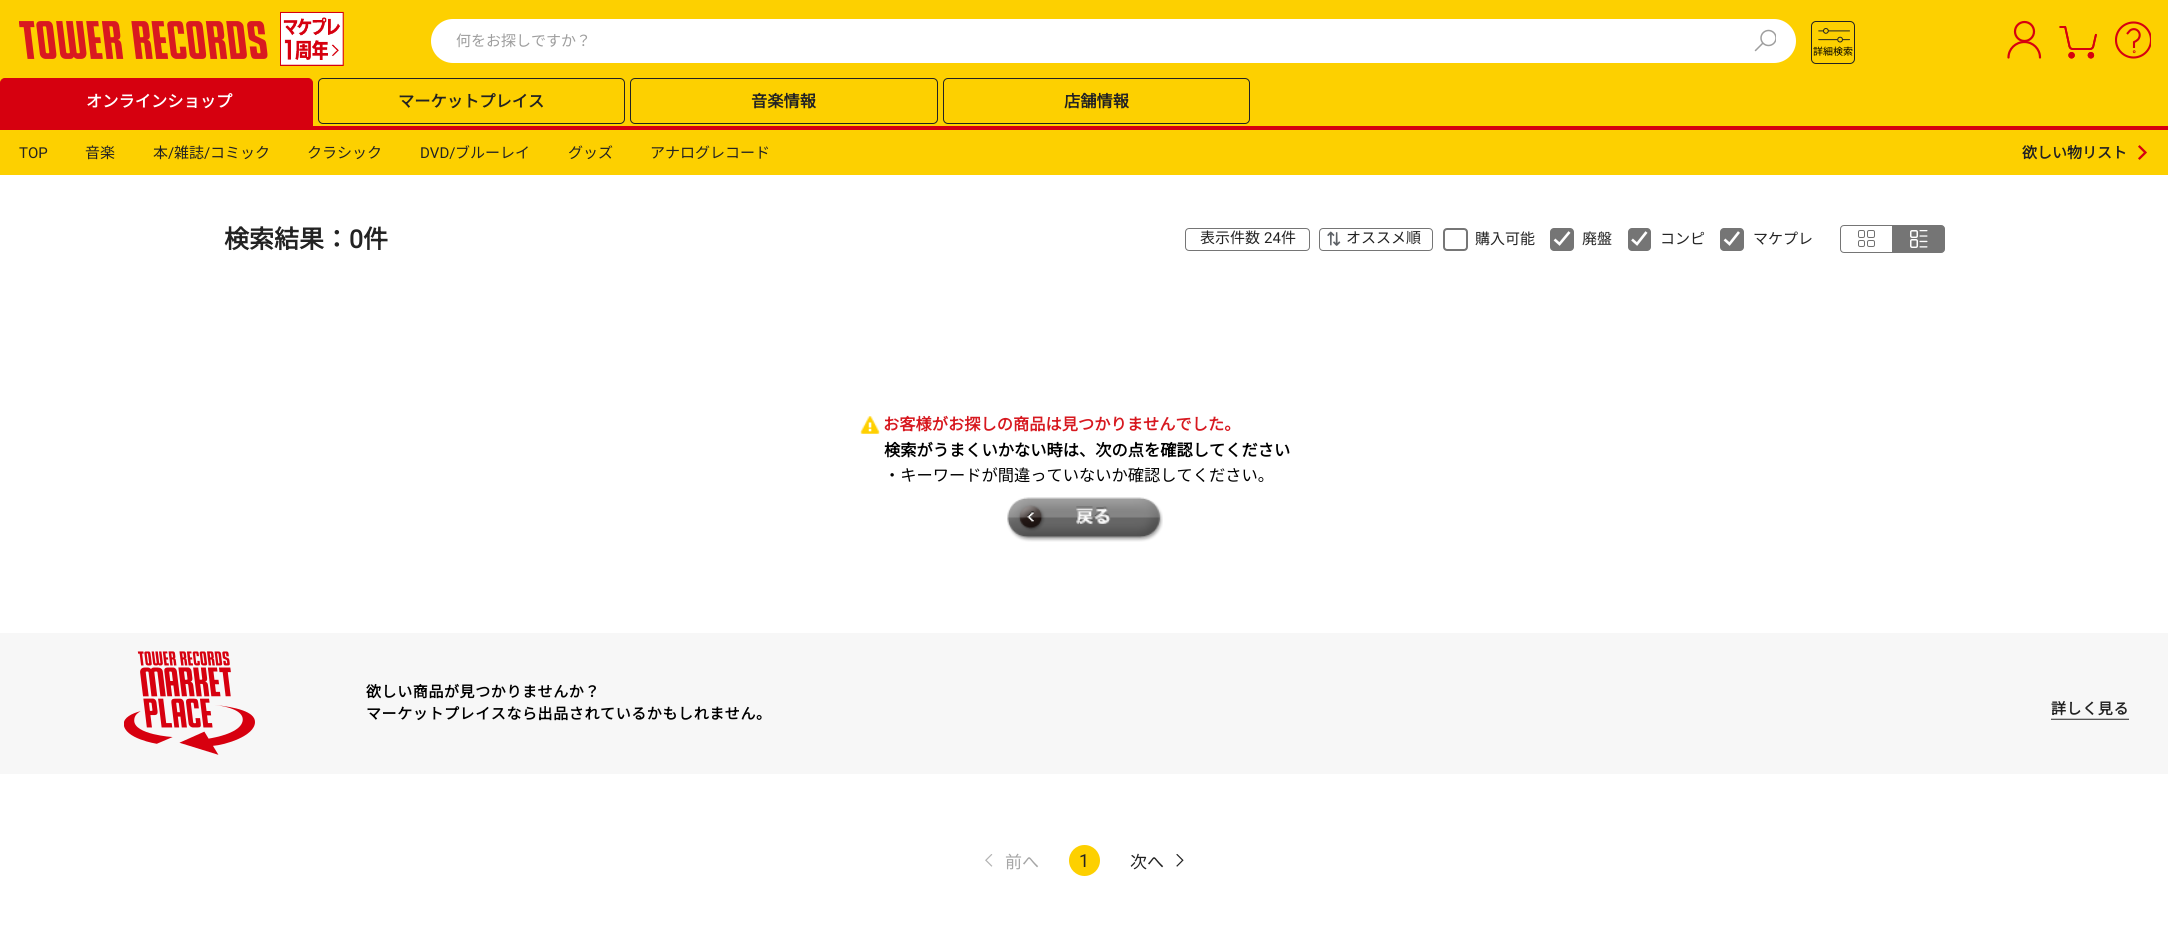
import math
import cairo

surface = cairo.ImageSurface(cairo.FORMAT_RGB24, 2168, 945)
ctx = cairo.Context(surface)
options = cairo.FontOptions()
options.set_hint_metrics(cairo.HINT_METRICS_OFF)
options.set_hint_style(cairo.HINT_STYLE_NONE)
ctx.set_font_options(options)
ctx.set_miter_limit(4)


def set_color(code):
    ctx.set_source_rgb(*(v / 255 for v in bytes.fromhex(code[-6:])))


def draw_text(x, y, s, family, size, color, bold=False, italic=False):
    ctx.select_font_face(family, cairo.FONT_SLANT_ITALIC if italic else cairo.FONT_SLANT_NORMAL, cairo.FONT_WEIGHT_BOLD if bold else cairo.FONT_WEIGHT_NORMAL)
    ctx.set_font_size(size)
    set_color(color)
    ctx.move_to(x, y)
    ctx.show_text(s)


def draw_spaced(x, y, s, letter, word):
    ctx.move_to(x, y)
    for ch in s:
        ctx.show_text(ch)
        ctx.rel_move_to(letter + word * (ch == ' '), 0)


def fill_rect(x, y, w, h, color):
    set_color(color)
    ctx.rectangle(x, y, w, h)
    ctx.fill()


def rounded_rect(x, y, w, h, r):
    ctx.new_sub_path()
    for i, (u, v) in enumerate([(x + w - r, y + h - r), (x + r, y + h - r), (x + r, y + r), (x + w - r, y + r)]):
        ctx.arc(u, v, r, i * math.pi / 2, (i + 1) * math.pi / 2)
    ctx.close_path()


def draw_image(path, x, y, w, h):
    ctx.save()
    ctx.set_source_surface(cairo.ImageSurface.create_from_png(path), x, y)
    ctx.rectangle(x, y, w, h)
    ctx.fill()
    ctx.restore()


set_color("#ffffff")
ctx.paint()
fill_rect(0, 0, 2168, 175, "#fdd000")
draw_image("assets/img1.png", 19, 21, 249, 38)
draw_image("assets/img2.png", 280, 11, 64, 55)
set_color("#ffffff")
rounded_rect(431, 19, 1365, 44, 22)
ctx.fill()
draw_text(456, 46, "何をお探しですか？", "Noto Sans JP Thin", 15, "#9e9e9e")
ctx.save()
ctx.rectangle(1754, 29, 22, 24)
ctx.clip()
ctx.arc(1768.5, 38, 7.5, 0, 2 * math.pi)
ctx.set_line_width(1.5)
ctx.stroke()
ctx.restore()
ctx.new_path()
ctx.move_to(1762.5, 43.5)
ctx.line_to(1755.5, 50.5)
ctx.set_line_width(1.5)
ctx.set_line_cap(cairo.LINE_CAP_ROUND)
ctx.set_line_join(cairo.LINE_JOIN_ROUND)
ctx.stroke()
draw_image("assets/img3.png", 1811, 21, 44, 43)
draw_text(1813, 55, "詳細検索", "Noto Sans JP Thin", 10, "#000000")
ctx.new_path()
ctx.arc(2024.5, 31.5, 9.5, 0, 2 * math.pi)
set_color("#d60010")
ctx.set_line_width(2.2)
ctx.set_line_cap(cairo.LINE_CAP_BUTT)
ctx.set_line_join(cairo.LINE_JOIN_MITER)
ctx.stroke()
ctx.new_path()
ctx.move_to(2040, 57.5)
ctx.curve_to(2040, 49, 2033, 42, 2024.5, 42)
ctx.curve_to(2015.5, 42, 2008.5, 49, 2008.5, 57.5)
ctx.set_line_cap(cairo.LINE_CAP_ROUND)
ctx.set_line_join(cairo.LINE_JOIN_ROUND)
ctx.stroke()
draw_image("assets/img4.png", 2059, 26, 38, 33)
ctx.save()
ctx.rectangle(2115, 21, 36, 38)
ctx.clip()
ctx.arc(2133.5, 40, 17.5, 0, 2 * math.pi)
ctx.set_line_width(2.1)
ctx.set_line_cap(cairo.LINE_CAP_BUTT)
ctx.set_line_join(cairo.LINE_JOIN_MITER)
ctx.stroke()
ctx.restore()
ctx.new_path()
ctx.move_to(2134, 48)
ctx.line_to(2134, 42)
ctx.curve_to(2135.5, 41.5, 2137, 40.5, 2138, 39.5)
ctx.curve_to(2143, 33.5, 2136, 26, 2130, 30.5)
ctx.line_to(2127, 34)
ctx.set_line_width(2.1)
ctx.set_line_cap(cairo.LINE_CAP_BUTT)
ctx.stroke()
ctx.arc(2134.2, 51.7, 0.4, 0, 2 * math.pi)
ctx.set_line_join(cairo.LINE_JOIN_MITER)
ctx.stroke()
fill_rect(0, 126, 2168, 4, "#d6000f")
ctx.new_path()
ctx.move_to(5, 78.5)
ctx.line_to(308, 78.5)
ctx.curve_to(310.5, 78.5, 312.5, 80.5, 312.5, 83)
ctx.line_to(312.5, 128.5)
ctx.line_to(0.5, 128.5)
ctx.line_to(0.5, 83)
ctx.curve_to(0.5, 80.5, 2.5, 78.5, 5, 78.5)
ctx.close_path()
ctx.fill_preserve()
ctx.set_line_width(1)
ctx.stroke()
draw_text(86, 107, "オンラインショップ", "Noto Sans JP", 16.25, "#ffffff", bold=True)
rounded_rect(318.5, 78.5, 306, 45, 4.5)
set_color("#232323")
ctx.stroke()
draw_text(398, 107, "マーケットプレイス", "Noto Sans JP", 16.25, "#232323", bold=True)
rounded_rect(630.5, 78.5, 307, 45, 4.5)
ctx.stroke()
draw_text(751, 107, "音楽情報", "Noto Sans JP", 16.25, "#232323", bold=True)
rounded_rect(943.5, 78.5, 306, 45, 4.5)
ctx.stroke()
draw_text(1064, 107, "店舗情報", "Noto Sans JP", 16.25, "#232323", bold=True)
draw_text(19, 158, "TOP", "Roboto", 15, "#232323")
draw_text(85, 158, "音楽", "Noto Sans JP Thin", 15, "#232323")
draw_text(153, 158, "本", "Noto Sans JP Thin", 15, "#232323")
draw_text(168, 158, "/", "Roboto", 15, "#232323")
draw_text(174, 158, "雑誌", "Noto Sans JP Thin", 15, "#232323")
draw_text(204, 158, "/", "Roboto", 15, "#232323")
draw_text(210, 158, "コミック", "Noto Sans JP Thin", 15, "#232323")
draw_text(307, 158, "クラシック", "Noto Sans JP Thin", 15, "#232323")
draw_text(420, 158, "DVD/", "Roboto", 15, "#232323")
draw_text(455, 158, "ブルーレイ", "Noto Sans JP Thin", 15, "#232323")
draw_text(568, 158, "グッズ", "Noto Sans JP Thin", 15, "#232323")
draw_text(650, 158, "アナログレコード", "Noto Sans JP Thin", 15, "#232323")
draw_text(2022, 158, "欲しい物リスト", "Noto Sans JP", 15, "#232323", bold=True)
draw_image("assets/img5.png", 2138, 145, 9, 15)
draw_text(224, 248, "検索結果：", "Noto Sans JP", 25, "#232323", bold=True)
draw_text(349, 248, "0", "Roboto", 25, "#232323", bold=True)
draw_text(363, 248, "件", "Noto Sans JP", 25, "#232323", bold=True)
rounded_rect(1185.5, 228.5, 124, 22, 3.5)
set_color("#757575")
ctx.stroke()
draw_text(1200, 243, "表示件数", "Noto Sans JP Thin", 15, "#232323")
draw_text(1264, 243, "24", "Roboto", 15, "#232323")
draw_text(1281, 243, "件", "Noto Sans JP Thin", 15, "#232323")
draw_image("assets/img6.png", 1327, 231, 14, 15)
rounded_rect(1319.5, 228.5, 113, 22, 3.5)
set_color("#757575")
ctx.stroke()
draw_text(1346, 243, "オススメ順", "Noto Sans JP Thin", 15, "#232323")
rounded_rect(1444, 229, 23, 21, 3)
set_color("#767676")
ctx.set_line_width(2)
ctx.stroke()
draw_text(1475, 244, "購入可能", "Noto Sans JP Thin", 15, "#232323")
set_color("#757575")
rounded_rect(1550, 228, 24, 23, 4)
ctx.fill()
ctx.new_path()
ctx.move_to(1554.5, 239.5)
ctx.line_to(1559.5, 244)
ctx.line_to(1569.5, 232)
set_color("#ffffff")
ctx.set_line_width(2.6)
ctx.stroke()
draw_text(1582, 244, "廃盤", "Noto Sans JP Thin", 15, "#232323")
set_color("#757575")
rounded_rect(1628, 228, 23, 23, 4)
ctx.fill()
ctx.new_path()
ctx.move_to(1632, 239.5)
ctx.line_to(1637, 244)
ctx.line_to(1646.5, 232)
set_color("#ffffff")
ctx.stroke()
draw_text(1660, 244, "コンピ", "Noto Sans JP Thin", 15, "#232323")
set_color("#757575")
rounded_rect(1720, 228, 24, 23, 4)
ctx.fill()
ctx.new_path()
ctx.move_to(1724.5, 239.5)
ctx.line_to(1729.5, 244)
ctx.line_to(1739, 232)
set_color("#ffffff")
ctx.stroke()
draw_text(1753, 244, "マケプレ", "Noto Sans JP Thin", 15, "#232323")
ctx.new_path()
ctx.move_to(1844, 225.5)
ctx.line_to(1892.5, 225.5)
ctx.line_to(1892.5, 252.5)
ctx.line_to(1844, 252.5)
ctx.curve_to(1842, 252.5, 1840.5, 251, 1840.5, 249)
ctx.line_to(1840.5, 229)
ctx.curve_to(1840.5, 227, 1842, 225.5, 1844, 225.5)
ctx.close_path()
set_color("#757575")
ctx.set_line_width(1)
ctx.stroke()
draw_image("assets/img7.png", 1858, 230, 17, 17)
ctx.new_path()
ctx.move_to(1893.5, 225.5)
ctx.line_to(1941, 225.5)
ctx.curve_to(1943, 225.5, 1944.5, 227, 1944.5, 229)
ctx.line_to(1944.5, 249)
ctx.curve_to(1944.5, 251, 1943, 252.5, 1941, 252.5)
ctx.line_to(1893.5, 252.5)
ctx.close_path()
ctx.fill_preserve()
ctx.stroke()
draw_image("assets/img8.png", 1910, 230, 18, 18)
draw_image("assets/img9.png", 860, 416, 20, 18)
draw_text(883, 430, "お客様がお探しの商品は見つかりませんでした。", "Noto Sans JP", 16.25, "#d71920", bold=True)
draw_text(884, 456, "検索がうまくいかない時は、次の点を確認してください", "Noto Sans JP", 16.25, "#000000", bold=True)
draw_text(884, 481, "・キーワードが間違っていないか確認してください。", "Noto Sans JP Thin", 16.25, "#000000")
draw_image("assets/img10.png", 1007, 497, 156, 45)
fill_rect(0, 633, 2168, 141, "#f7f7f7")
draw_image("assets/img11.png", 124, 651, 131, 104)
ctx.select_font_face("Noto Sans JP", cairo.FONT_SLANT_NORMAL, cairo.FONT_WEIGHT_BOLD)
ctx.set_font_size(15)
set_color("#000000")
draw_spaced(366, 697, "欲しい商品が見つかりませんか？", 0.6, 0)
draw_spaced(366, 719, "マーケットプレイスなら出品されているかもしれません。", 0.6, 0)
gradient = cairo.LinearGradient(2090, 718, 2090, 720)
gradient.add_color_stop_rgba(0, 0.969, 0.969, 0.969, 1)
gradient.add_color_stop_rgba(1, 0.137, 0.137, 0.137, 1)
ctx.set_source(gradient)
ctx.rectangle(2051, 718, 78, 2)
ctx.fill()
set_color("#232323")
draw_spaced(2051, 714, "詳しく見る", 0.6, 0)
draw_image("assets/img12.png", 985, 854, 8, 13)
draw_text(1005, 868, "前へ", "Noto Sans JP Thin", 17, "#a6a6a6")
set_color("#fdd000")
ctx.new_path()
ctx.arc(1084.5, 860.5, 15.5, 0, 2 * math.pi)
ctx.fill()
draw_text(1079, 867, "1", "Roboto", 18, "#232323")
draw_text(1130, 868, "次へ", "Noto Sans JP Thin", 17, "#232323")
draw_image("assets/img13.png", 1176, 854, 8, 13)
surface.write_to_png("output.png")
